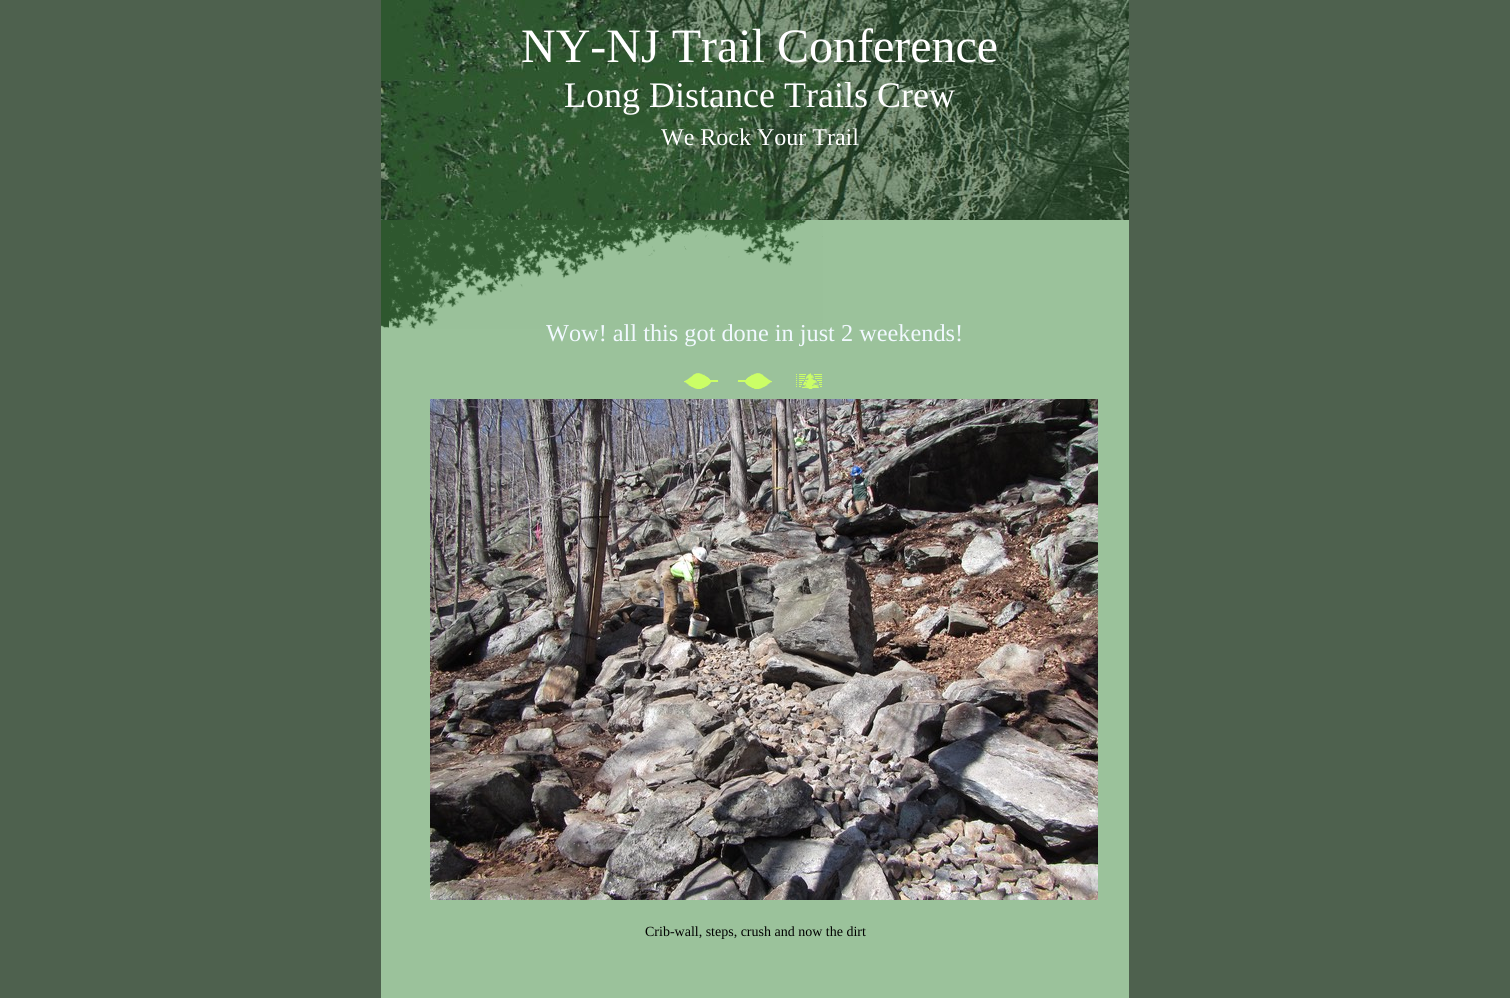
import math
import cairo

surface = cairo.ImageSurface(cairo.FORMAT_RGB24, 1510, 998)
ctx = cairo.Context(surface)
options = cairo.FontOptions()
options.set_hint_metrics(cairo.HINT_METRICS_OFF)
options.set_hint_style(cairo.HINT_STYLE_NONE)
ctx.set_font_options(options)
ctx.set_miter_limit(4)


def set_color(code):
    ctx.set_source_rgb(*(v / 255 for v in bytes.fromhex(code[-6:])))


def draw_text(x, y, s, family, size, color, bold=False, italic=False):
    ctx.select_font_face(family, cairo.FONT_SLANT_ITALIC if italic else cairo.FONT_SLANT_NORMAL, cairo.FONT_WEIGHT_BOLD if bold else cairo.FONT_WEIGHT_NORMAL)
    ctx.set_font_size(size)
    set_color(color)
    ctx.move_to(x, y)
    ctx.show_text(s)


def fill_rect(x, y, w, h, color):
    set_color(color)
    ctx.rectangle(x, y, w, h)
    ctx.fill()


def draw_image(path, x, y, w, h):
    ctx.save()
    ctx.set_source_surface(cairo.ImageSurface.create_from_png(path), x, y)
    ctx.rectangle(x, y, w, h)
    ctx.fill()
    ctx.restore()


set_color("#4e614e")
ctx.paint()
fill_rect(381, 220, 748, 778, "#9bc29b")
draw_image("assets/img1.png", 381, 0, 748, 220)
draw_text(521, 62, "NY-NJ Trail Conference", "Liberation Serif", 48, "#ffffff")
draw_text(564, 107, "Long Distance Trails Crew", "Liberation Serif", 36, "#ffffff")
draw_text(661, 145, "We Rock Your Trail", "Liberation Serif", 24, "#ffffff")
draw_image("assets/img2.png", 381, 220, 442, 109)
draw_text(546, 341, "Wow! all this got done in just 2 weekends!", "Liberation Serif", 24.3, "#f1f9ff")
draw_image("assets/img3.png", 684, 373, 35, 16)
draw_image("assets/img4.png", 737, 373, 35, 16)
draw_image("assets/img5.png", 796, 373, 26, 16)
draw_image("assets/img6.png", 430, 399, 668, 501)
draw_text(645, 936, "Crib-wall, steps, crush and now the dirt", "Liberation Serif", 14, "#000000")
surface.write_to_png("output.png")
